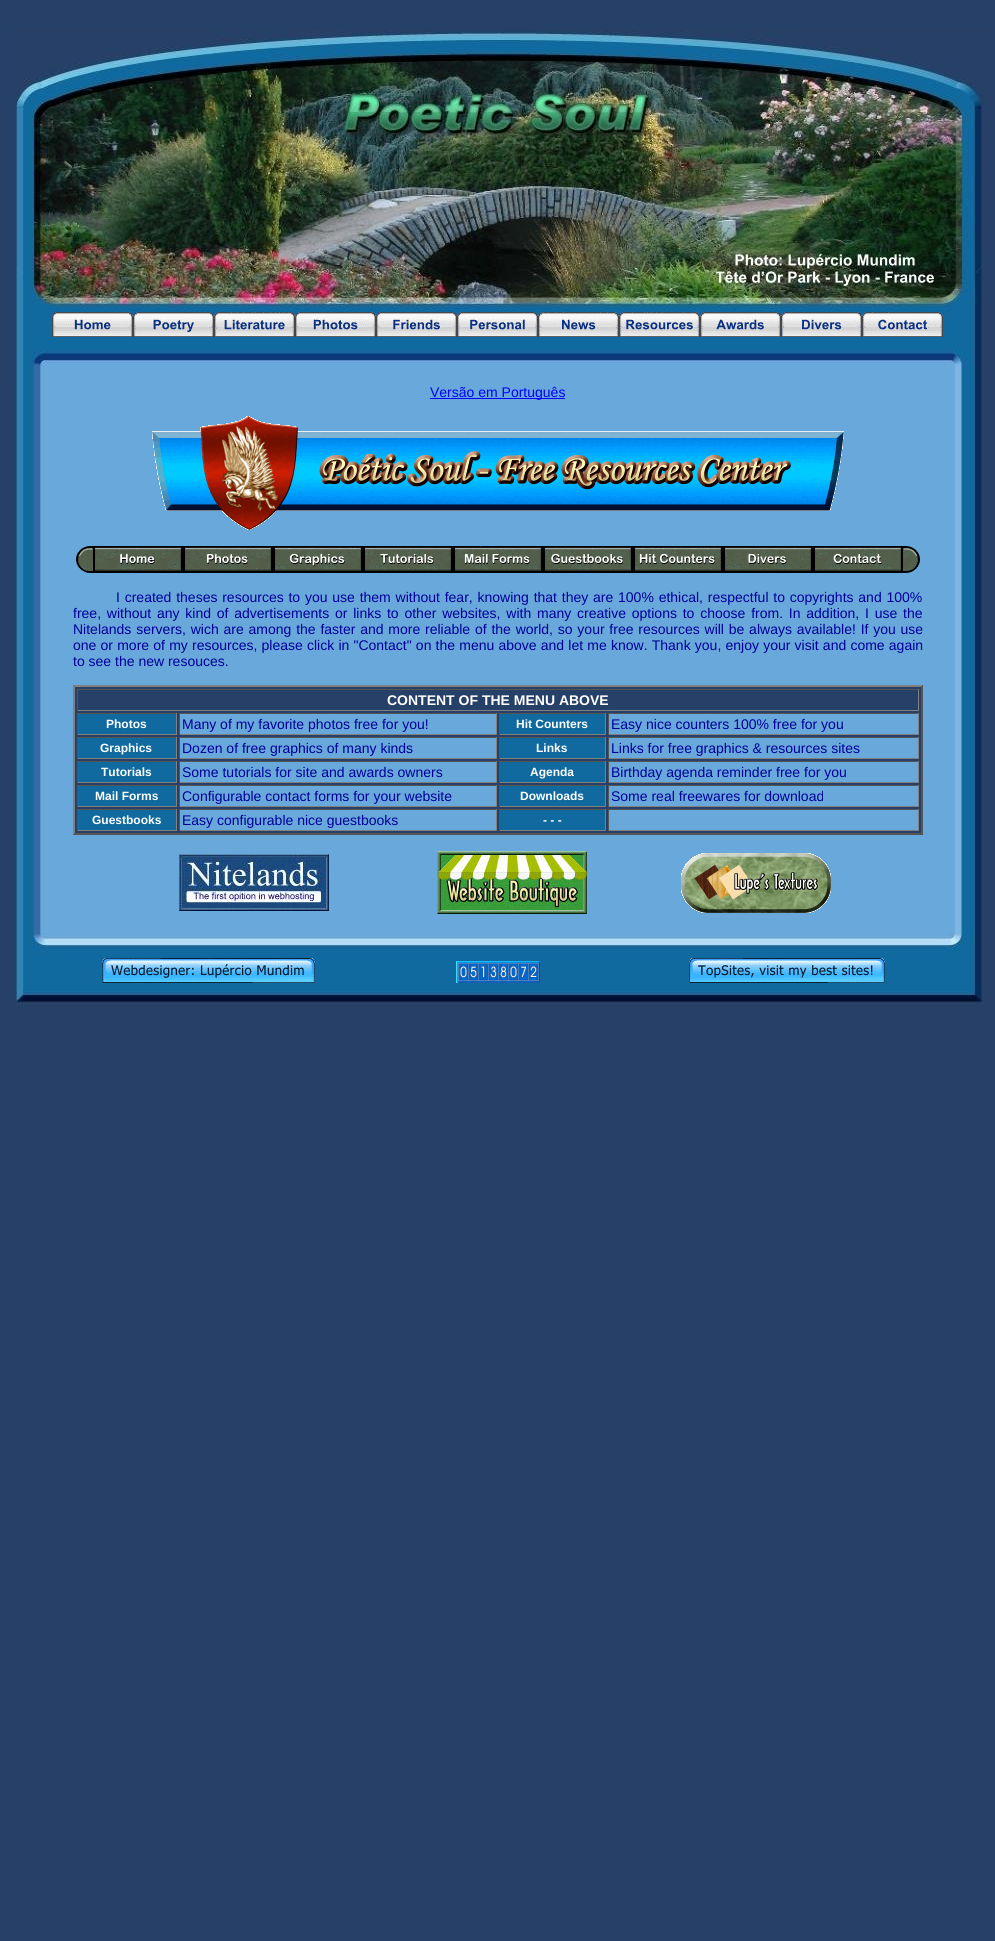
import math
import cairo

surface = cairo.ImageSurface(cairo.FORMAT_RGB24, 995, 1941)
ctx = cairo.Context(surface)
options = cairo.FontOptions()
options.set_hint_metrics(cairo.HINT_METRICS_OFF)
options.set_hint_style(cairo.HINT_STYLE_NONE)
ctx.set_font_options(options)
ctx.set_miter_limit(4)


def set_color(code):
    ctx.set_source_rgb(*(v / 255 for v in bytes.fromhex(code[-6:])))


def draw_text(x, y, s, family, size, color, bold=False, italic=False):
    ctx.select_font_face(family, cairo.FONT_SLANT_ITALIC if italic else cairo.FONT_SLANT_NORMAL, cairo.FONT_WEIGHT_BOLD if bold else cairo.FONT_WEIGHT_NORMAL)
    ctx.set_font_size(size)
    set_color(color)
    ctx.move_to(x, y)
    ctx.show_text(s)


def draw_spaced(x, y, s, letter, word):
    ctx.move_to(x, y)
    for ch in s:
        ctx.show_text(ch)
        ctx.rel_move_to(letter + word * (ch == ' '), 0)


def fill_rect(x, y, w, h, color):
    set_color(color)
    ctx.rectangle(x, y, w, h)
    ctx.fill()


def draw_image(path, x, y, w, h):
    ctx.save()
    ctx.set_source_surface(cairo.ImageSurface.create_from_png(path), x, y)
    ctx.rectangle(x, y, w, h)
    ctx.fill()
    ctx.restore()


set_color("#274068")
ctx.paint()
draw_image("assets/img1.png", 10, 24, 975, 360)
draw_image("assets/img2.png", 52, 312, 81, 25)
draw_image("assets/img3.png", 133, 312, 81, 25)
draw_image("assets/img4.png", 214, 312, 81, 25)
draw_image("assets/img5.png", 295, 312, 81, 25)
draw_image("assets/img6.png", 376, 312, 81, 25)
draw_image("assets/img7.png", 457, 312, 81, 25)
draw_image("assets/img8.png", 538, 312, 81, 25)
draw_image("assets/img9.png", 619, 312, 81, 25)
draw_image("assets/img10.png", 700, 312, 81, 25)
draw_image("assets/img11.png", 781, 312, 81, 25)
draw_image("assets/img12.png", 862, 312, 81, 25)
draw_image("assets/img13.png", 14, 384, 968, 546)
fill_rect(430, 398, 135, 1, "#0000ff")
draw_text(430, 397, "Versão em Português", "Liberation Sans", 14, "#0000ff")
draw_image("assets/img14.png", 152, 416, 692, 114)
draw_image("assets/img15.png", 76, 546, 17, 27)
draw_image("assets/img16.png", 93, 546, 90, 27)
draw_image("assets/img17.png", 183, 546, 90, 27)
draw_image("assets/img18.png", 273, 546, 90, 27)
draw_image("assets/img19.png", 363, 546, 90, 27)
draw_image("assets/img20.png", 453, 546, 90, 27)
draw_image("assets/img21.png", 543, 546, 90, 27)
draw_image("assets/img22.png", 633, 546, 90, 27)
draw_image("assets/img23.png", 723, 546, 90, 27)
draw_image("assets/img24.png", 813, 546, 90, 27)
draw_image("assets/img25.png", 903, 546, 17, 27)
set_color("#000099")
draw_spaced(116, 602, "I created theses resources to you use them without fear, knowing that they are 100% ethical, respectful to copyrights and 100%", 0, 0.9)
draw_spaced(73, 618, "free, without any kind of advertisements or links to other websites, with many creative options to choose from. In addition, I use the", 0, 1.9)
draw_spaced(73, 634, "Nitelands servers, wich are among the faster and more reliable of the world, so your free resources will be always available! If you use", 0, 0.9)
draw_spaced(73, 650, "one or more of my resources, please click in \"Contact\" on the menu above and let me know. Thank you, enjoy your visit and come again", 0, 0.3)
draw_text(73, 666, "to see the new resouces.", "Liberation Sans", 14, "#000099")
fill_rect(73, 685, 850, 150, "#274068")
set_color("#808080")
ctx.new_path()
ctx.move_to(73, 685)
ctx.line_to(923, 685)
ctx.line_to(921, 687)
ctx.line_to(75, 687)
ctx.close_path()
ctx.fill()
set_color("#555555")
ctx.new_path()
ctx.move_to(923, 685)
ctx.line_to(923, 835)
ctx.line_to(921, 833)
ctx.line_to(921, 687)
ctx.close_path()
ctx.fill()
ctx.new_path()
ctx.move_to(923, 835)
ctx.line_to(73, 835)
ctx.line_to(75, 833)
ctx.line_to(921, 833)
ctx.close_path()
ctx.fill()
set_color("#808080")
ctx.new_path()
ctx.move_to(73, 835)
ctx.line_to(73, 685)
ctx.line_to(75, 687)
ctx.line_to(75, 833)
ctx.close_path()
ctx.fill()
fill_rect(77, 689, 842, 1, "#555555")
fill_rect(918, 689, 1, 22, "#808080")
fill_rect(77, 710, 842, 1, "#808080")
fill_rect(77, 689, 1, 22, "#555555")
draw_text(387, 705, "CONTENT OF THE MENU ABOVE", "Liberation Sans", 14, "#ffffff", bold=True)
fill_rect(78, 714, 98, 20, "#106a9f")
fill_rect(77, 713, 100, 1, "#555555")
fill_rect(176, 713, 1, 22, "#808080")
fill_rect(77, 734, 100, 1, "#808080")
fill_rect(77, 713, 1, 22, "#555555")
draw_text(106, 728, "Photos", "Liberation Sans", 12, "#ffffff", bold=True)
fill_rect(180, 714, 316, 20, "#69a8db")
fill_rect(179, 713, 318, 1, "#555555")
fill_rect(496, 713, 1, 22, "#808080")
fill_rect(179, 734, 318, 1, "#808080")
fill_rect(179, 713, 1, 22, "#555555")
draw_text(182, 729, "Many of my favorite photos free for you!", "Liberation Sans", 14, "#000099")
fill_rect(500, 714, 105, 20, "#106a9f")
fill_rect(499, 713, 107, 1, "#555555")
fill_rect(605, 713, 1, 22, "#808080")
fill_rect(499, 734, 107, 1, "#808080")
fill_rect(499, 713, 1, 22, "#555555")
draw_text(516, 728, "Hit Counters", "Liberation Sans", 12, "#ffffff", bold=True)
fill_rect(609, 714, 309, 20, "#69a8db")
fill_rect(608, 713, 311, 1, "#555555")
fill_rect(918, 713, 1, 22, "#808080")
fill_rect(608, 734, 311, 1, "#808080")
fill_rect(608, 713, 1, 22, "#555555")
draw_text(611, 729, "Easy nice counters 100% free for you", "Liberation Sans", 14, "#000099")
fill_rect(78, 738, 98, 20, "#106a9f")
fill_rect(77, 737, 100, 1, "#555555")
fill_rect(176, 737, 1, 22, "#808080")
fill_rect(77, 758, 100, 1, "#808080")
fill_rect(77, 737, 1, 22, "#555555")
draw_text(100, 752, "Graphics", "Liberation Sans", 12, "#ffffff", bold=True)
fill_rect(180, 738, 316, 20, "#69a8db")
fill_rect(179, 737, 318, 1, "#555555")
fill_rect(496, 737, 1, 22, "#808080")
fill_rect(179, 758, 318, 1, "#808080")
fill_rect(179, 737, 1, 22, "#555555")
draw_text(182, 753, "Dozen of free graphics of many kinds", "Liberation Sans", 14, "#000099")
fill_rect(500, 738, 105, 20, "#106a9f")
fill_rect(499, 737, 107, 1, "#555555")
fill_rect(605, 737, 1, 22, "#808080")
fill_rect(499, 758, 107, 1, "#808080")
fill_rect(499, 737, 1, 22, "#555555")
draw_text(536, 752, "Links", "Liberation Sans", 12, "#ffffff", bold=True)
fill_rect(609, 738, 309, 20, "#69a8db")
fill_rect(608, 737, 311, 1, "#555555")
fill_rect(918, 737, 1, 22, "#808080")
fill_rect(608, 758, 311, 1, "#808080")
fill_rect(608, 737, 1, 22, "#555555")
draw_text(611, 753, "Links for free graphics & resources sites", "Liberation Sans", 14, "#000099")
fill_rect(78, 762, 98, 20, "#106a9f")
fill_rect(77, 761, 100, 1, "#555555")
fill_rect(176, 761, 1, 22, "#808080")
fill_rect(77, 782, 100, 1, "#808080")
fill_rect(77, 761, 1, 22, "#555555")
draw_text(101, 776, "Tutorials", "Liberation Sans", 12, "#ffffff", bold=True)
fill_rect(180, 762, 316, 20, "#69a8db")
fill_rect(179, 761, 318, 1, "#555555")
fill_rect(496, 761, 1, 22, "#808080")
fill_rect(179, 782, 318, 1, "#808080")
fill_rect(179, 761, 1, 22, "#555555")
draw_text(182, 777, "Some tutorials for site and awards owners", "Liberation Sans", 14, "#000099")
fill_rect(500, 762, 105, 20, "#106a9f")
fill_rect(499, 761, 107, 1, "#555555")
fill_rect(605, 761, 1, 22, "#808080")
fill_rect(499, 782, 107, 1, "#808080")
fill_rect(499, 761, 1, 22, "#555555")
draw_text(530, 776, "Agenda", "Liberation Sans", 12, "#ffffff", bold=True)
fill_rect(609, 762, 309, 20, "#69a8db")
fill_rect(608, 761, 311, 1, "#555555")
fill_rect(918, 761, 1, 22, "#808080")
fill_rect(608, 782, 311, 1, "#808080")
fill_rect(608, 761, 1, 22, "#555555")
draw_text(611, 777, "Birthday agenda reminder free for you", "Liberation Sans", 14, "#000099")
fill_rect(78, 786, 98, 20, "#106a9f")
fill_rect(77, 785, 100, 1, "#555555")
fill_rect(176, 785, 1, 22, "#808080")
fill_rect(77, 806, 100, 1, "#808080")
fill_rect(77, 785, 1, 22, "#555555")
draw_text(95, 800, "Mail Forms", "Liberation Sans", 12, "#ffffff", bold=True)
fill_rect(180, 786, 316, 20, "#69a8db")
fill_rect(179, 785, 318, 1, "#555555")
fill_rect(496, 785, 1, 22, "#808080")
fill_rect(179, 806, 318, 1, "#808080")
fill_rect(179, 785, 1, 22, "#555555")
draw_text(182, 801, "Configurable contact forms for your website", "Liberation Sans", 14, "#000099")
fill_rect(500, 786, 105, 20, "#106a9f")
fill_rect(499, 785, 107, 1, "#555555")
fill_rect(605, 785, 1, 22, "#808080")
fill_rect(499, 806, 107, 1, "#808080")
fill_rect(499, 785, 1, 22, "#555555")
draw_text(520, 800, "Downloads", "Liberation Sans", 12, "#ffffff", bold=True)
fill_rect(609, 786, 309, 20, "#69a8db")
fill_rect(608, 785, 311, 1, "#555555")
fill_rect(918, 785, 1, 22, "#808080")
fill_rect(608, 806, 311, 1, "#808080")
fill_rect(608, 785, 1, 22, "#555555")
draw_text(611, 801, "Some real freewares for download", "Liberation Sans", 14, "#000099")
fill_rect(78, 810, 98, 20, "#106a9f")
fill_rect(77, 809, 100, 1, "#555555")
fill_rect(176, 809, 1, 22, "#808080")
fill_rect(77, 830, 100, 1, "#808080")
fill_rect(77, 809, 1, 22, "#555555")
draw_text(92, 824, "Guestbooks", "Liberation Sans", 12, "#ffffff", bold=True)
fill_rect(180, 810, 316, 20, "#69a8db")
fill_rect(179, 809, 318, 1, "#555555")
fill_rect(496, 809, 1, 22, "#808080")
fill_rect(179, 830, 318, 1, "#808080")
fill_rect(179, 809, 1, 22, "#555555")
draw_text(182, 825, "Easy configurable nice guestbooks", "Liberation Sans", 14, "#000099")
fill_rect(500, 810, 105, 20, "#106a9f")
fill_rect(499, 809, 107, 1, "#555555")
fill_rect(605, 809, 1, 22, "#808080")
fill_rect(499, 830, 107, 1, "#808080")
fill_rect(499, 809, 1, 22, "#555555")
draw_text(543, 824, "- - -", "Liberation Sans", 12, "#ffffff", bold=True)
fill_rect(609, 810, 309, 20, "#69a8db")
fill_rect(608, 809, 311, 1, "#555555")
fill_rect(918, 809, 1, 22, "#808080")
fill_rect(608, 830, 311, 1, "#808080")
fill_rect(608, 809, 1, 22, "#555555")
draw_image("assets/img26.png", 179, 854, 150, 57)
draw_image("assets/img27.png", 437, 851, 150, 63)
draw_image("assets/img28.png", 681, 853, 150, 60)
draw_image("assets/img29.png", 14, 930, 970, 74)
draw_image("assets/img30.png", 102, 958, 213, 25)
draw_image("assets/img31.png", 456, 961, 84, 22)
draw_image("assets/img32.png", 689, 958, 196, 25)
surface.write_to_png("output.png")
